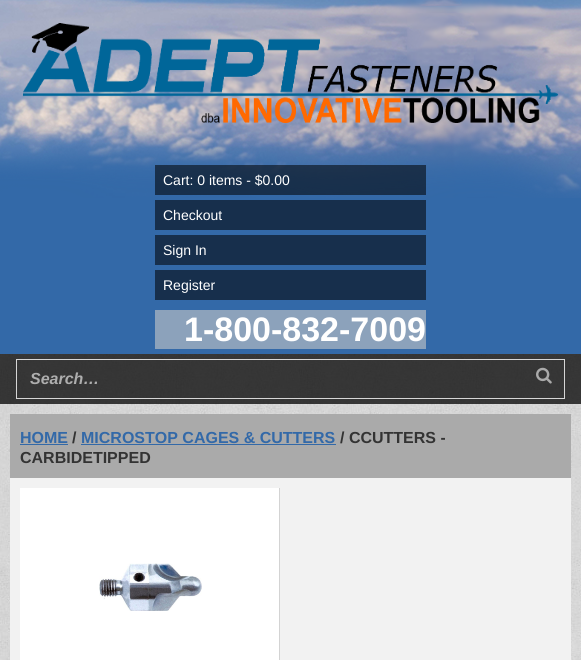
import math
import cairo

surface = cairo.ImageSurface(cairo.FORMAT_RGB24, 581, 660)
ctx = cairo.Context(surface)
options = cairo.FontOptions()
options.set_hint_metrics(cairo.HINT_METRICS_OFF)
options.set_hint_style(cairo.HINT_STYLE_NONE)
ctx.set_font_options(options)
ctx.set_miter_limit(4)


def set_color(code):
    ctx.set_source_rgb(*(v / 255 for v in bytes.fromhex(code[-6:])))


def draw_text(x, y, s, family, size, color, bold=False, italic=False):
    ctx.select_font_face(family, cairo.FONT_SLANT_ITALIC if italic else cairo.FONT_SLANT_NORMAL, cairo.FONT_WEIGHT_BOLD if bold else cairo.FONT_WEIGHT_NORMAL)
    ctx.set_font_size(size)
    set_color(color)
    ctx.move_to(x, y)
    ctx.show_text(s)


def fill_rect(x, y, w, h, color):
    set_color(color)
    ctx.rectangle(x, y, w, h)
    ctx.fill()


def draw_image(path, x, y, w, h):
    ctx.save()
    ctx.set_source_surface(cairo.ImageSurface.create_from_png(path), x, y)
    ctx.rectangle(x, y, w, h)
    ctx.fill()
    ctx.restore()


set_color("#ffffff")
ctx.paint()
draw_image("assets/img1.png", 0, 354, 581, 306)
fill_rect(0, 115, 581, 239, "#3369a8")
draw_image("assets/img2.png", 0, 0, 581, 198)
draw_image("assets/img3.png", 23, 23, 535, 100)
ctx.set_source_rgba(0, 0, 0, 0.55)
ctx.rectangle(155, 165, 271, 30)
ctx.fill()
draw_text(163, 185, "Cart: 0 items - $0.00", "Liberation Sans", 14, "#ffffff")
fill_rect(155, 200, 271, 30, "#172f4c")
draw_text(163, 220, "Checkout", "Liberation Sans", 14, "#ffffff")
fill_rect(155, 235, 271, 30, "#172f4c")
draw_text(163, 255, "Sign In", "Liberation Sans", 14, "#ffffff")
fill_rect(155, 270, 271, 30, "#172f4c")
draw_text(163, 290, "Register", "Liberation Sans", 14, "#ffffff")
fill_rect(155, 310, 271, 39, "#8ca2bb")
draw_text(184, 341, "1-800-832-7009", "Liberation Sans", 34, "#ffffff", bold=True)
ctx.set_source_rgba(0, 0, 0, 0.75)
ctx.rectangle(0, 354, 581, 50)
ctx.fill()
ctx.rectangle(16.5, 359.5, 548, 39)
set_color("#d6d6d6")
ctx.set_line_width(1)
ctx.stroke()
draw_text(30, 384, "Search…", "Liberation Sans", 16, "#aeaeae", bold=True, italic=True)
draw_image("assets/img4.png", 536, 367, 16, 17)
fill_rect(10, 414, 561, 64, "#aaaaaa")
draw_text(20, 443, "HOME", "Liberation Sans", 16, "#3369a8", bold=True)
fill_rect(20, 444, 48, 1, "#3369a8")
draw_text(72, 443, "/", "Liberation Sans", 16, "#333333", bold=True)
draw_text(81, 443, "MICROSTOP CAGES & CUTTERS", "Liberation Sans", 16, "#3369a8", bold=True)
fill_rect(81, 444, 255, 1, "#3369a8")
draw_text(340, 443, "/ CCUTTERS -", "Liberation Sans", 16, "#333333", bold=True)
draw_text(20, 463, "CARBIDETIPPED", "Liberation Sans", 16, "#333333", bold=True)
fill_rect(10, 478, 561, 182, "#f2f2f2")
fill_rect(20, 488, 259, 172, "#ffffff")
fill_rect(279, 488, 1, 172, "#d3d3d3")
draw_image("assets/img5.png", 99, 563, 103, 48)
surface.write_to_png("output.png")
